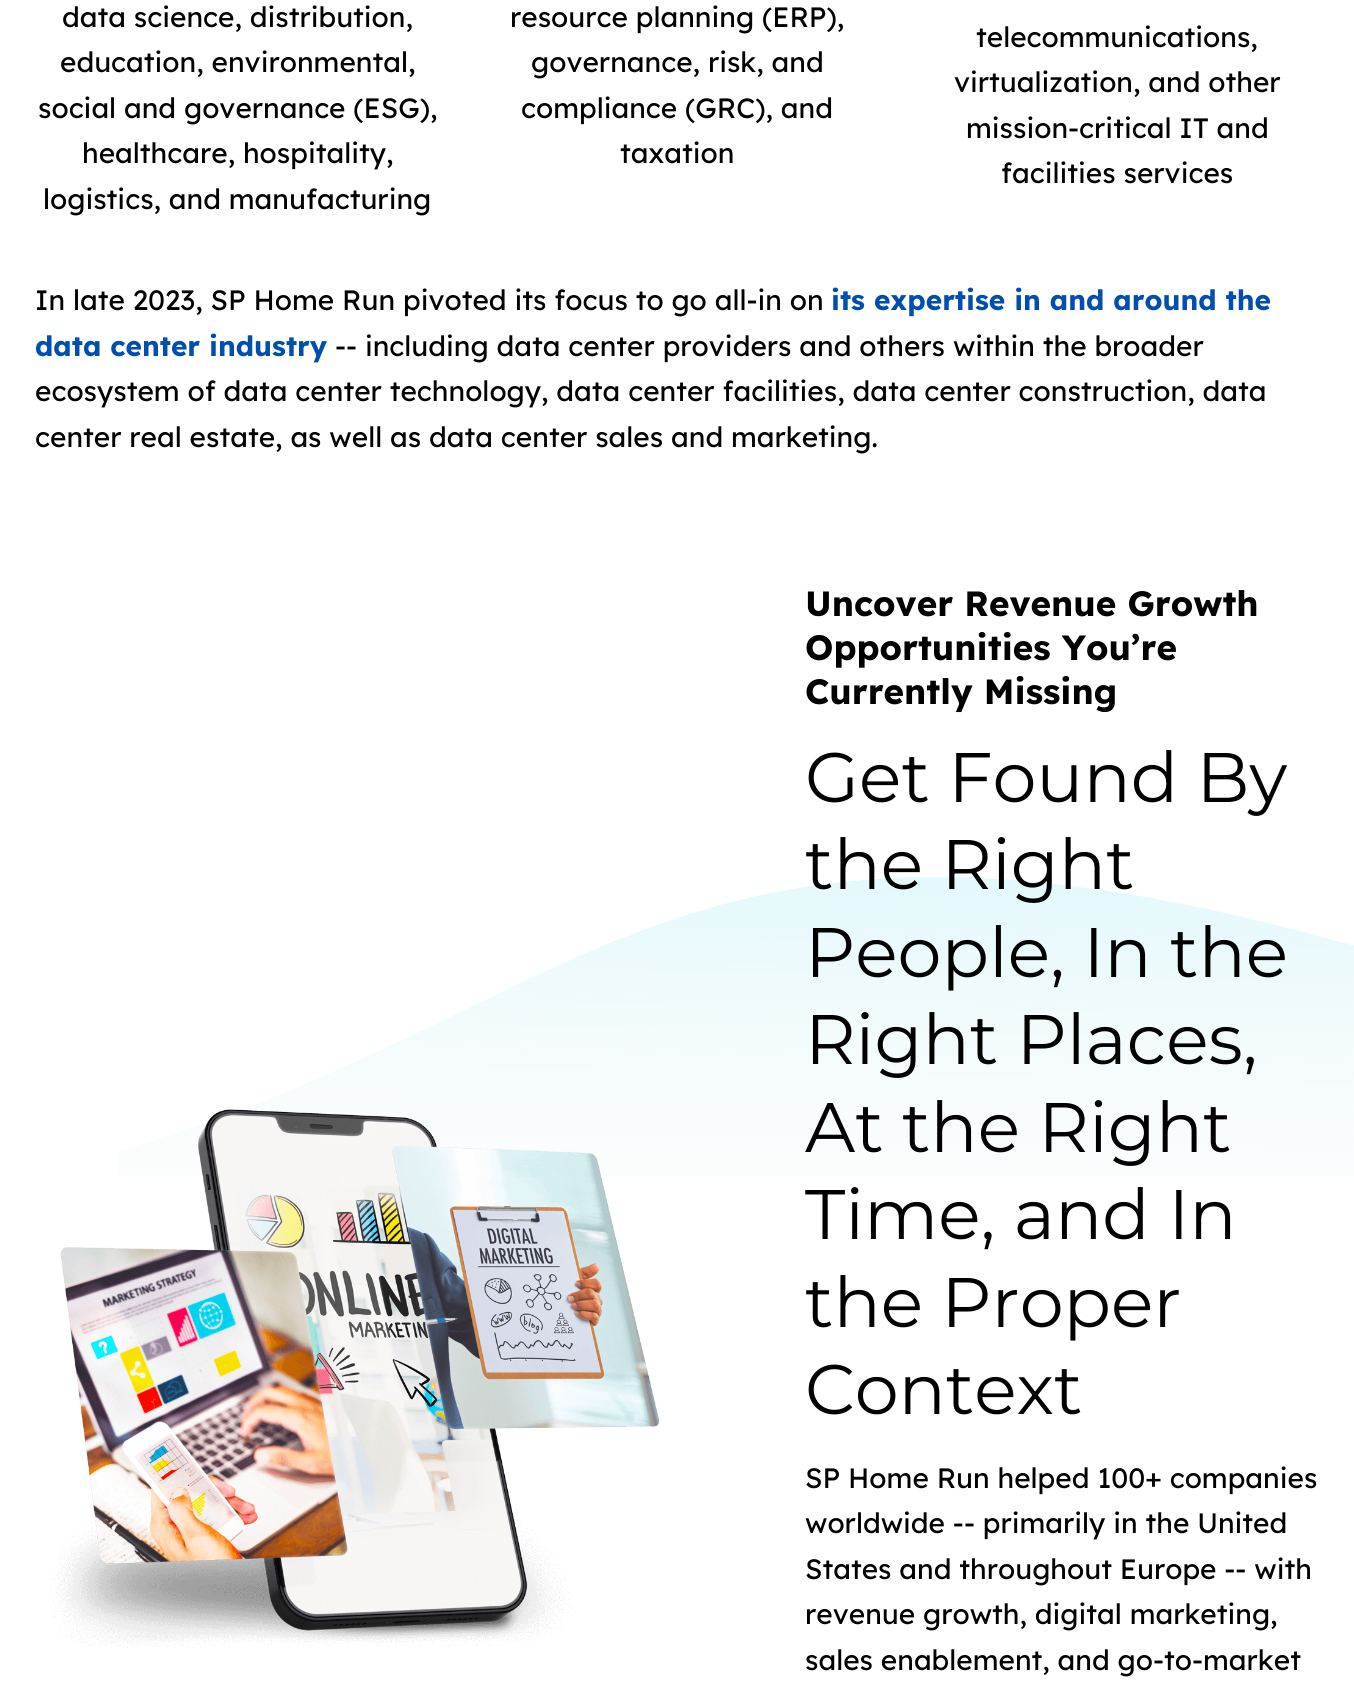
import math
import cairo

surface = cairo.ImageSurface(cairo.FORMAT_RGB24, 1354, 1697)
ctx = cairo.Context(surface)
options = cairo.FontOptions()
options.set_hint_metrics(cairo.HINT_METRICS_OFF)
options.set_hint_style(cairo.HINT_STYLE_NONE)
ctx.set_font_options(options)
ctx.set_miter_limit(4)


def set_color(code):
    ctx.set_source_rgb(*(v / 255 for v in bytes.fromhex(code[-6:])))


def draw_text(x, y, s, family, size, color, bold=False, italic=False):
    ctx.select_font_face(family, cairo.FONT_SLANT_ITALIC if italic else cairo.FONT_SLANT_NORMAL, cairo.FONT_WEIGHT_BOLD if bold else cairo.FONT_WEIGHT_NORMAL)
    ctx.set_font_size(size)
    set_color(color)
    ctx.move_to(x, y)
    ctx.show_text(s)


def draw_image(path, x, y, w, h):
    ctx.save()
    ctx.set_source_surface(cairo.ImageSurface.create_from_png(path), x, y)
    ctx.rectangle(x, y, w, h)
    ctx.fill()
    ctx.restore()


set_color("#ffffff")
ctx.paint()
draw_text(62, 27, "data science, distribution,", "Lexend", 28, "#000000")
draw_text(60, 72, "education, environmental,", "Lexend", 28, "#000000")
draw_text(38, 118, "social and governance (ESG),", "Lexend", 28, "#000000")
draw_text(82, 163, "healthcare, hospitality,", "Lexend", 28, "#000000")
draw_text(43, 209, "logistics, and manufacturing", "Lexend", 28, "#000000")
draw_text(510, 27, "resource planning (ERP),", "Lexend", 28, "#000000")
draw_text(531, 72, "governance, risk, and", "Lexend", 28, "#000000")
draw_text(521, 118, "compliance (GRC), and", "Lexend", 28, "#000000")
draw_text(620, 163, "taxation", "Lexend", 28, "#000000")
draw_text(976, 47, "telecommunications,", "Lexend", 28, "#000000")
draw_text(954, 92, "virtualization, and other", "Lexend", 28, "#000000")
draw_text(966, 138, "mission-critical IT and", "Lexend", 28, "#000000")
draw_text(1001, 183, "facilities services", "Lexend", 28, "#000000")
draw_text(35, 310, "In late 2023, SP Home Run pivoted its focus to go all-in on", "Lexend", 28, "#000000")
draw_text(831, 310, "its expertise in and around the", "Lexend", 28, "#004eaf", bold=True)
draw_text(35, 356, "data center industry", "Lexend", 28, "#004eaf", bold=True)
draw_text(335, 356, "-- including data center providers and others within the broader", "Lexend", 28, "#000000")
draw_text(35, 401, "ecosystem of data center technology, data center facilities, data center construction, data", "Lexend", 28, "#000000")
draw_text(35, 447, "center real estate, as well as data center sales and marketing.", "Lexend", 28, "#000000")
draw_image("assets/img1.png", 117, 877, 1237, 299)
draw_image("assets/img2.png", 49, 1109, 611, 539)
draw_text(805, 616, "Uncover Revenue Growth", "Lexend", 35, "#000000", bold=True)
draw_text(805, 660, "Opportunities You’re", "Lexend", 35, "#000000", bold=True)
draw_text(805, 704, "Currently Missing", "Lexend", 35, "#000000", bold=True)
draw_text(805, 802, "Get Found By", "Montserrat", 70, "#000000")
draw_text(805, 889, "the Right", "Montserrat", 70, "#000000")
draw_text(805, 977, "People, In the", "Montserrat", 70, "#000000")
draw_text(805, 1064, "Right Places,", "Montserrat", 70, "#000000")
draw_text(805, 1152, "At the Right", "Montserrat", 70, "#000000")
draw_text(805, 1239, "Time, and In", "Montserrat", 70, "#000000")
draw_text(805, 1327, "the Proper", "Montserrat", 70, "#000000")
draw_text(805, 1414, "Context", "Montserrat", 70, "#000000")
draw_text(805, 1488, "SP Home Run helped 100+ companies", "Lexend", 28, "#000000")
draw_text(805, 1533, "worldwide -- primarily in the United", "Lexend", 28, "#000000")
draw_text(805, 1579, "States and throughout Europe -- with", "Lexend", 28, "#000000")
draw_text(805, 1624, "revenue growth, digital marketing,", "Lexend", 28, "#000000")
draw_text(805, 1670, "sales enablement, and go-to-market", "Lexend", 28, "#000000")
surface.write_to_png("output.png")
